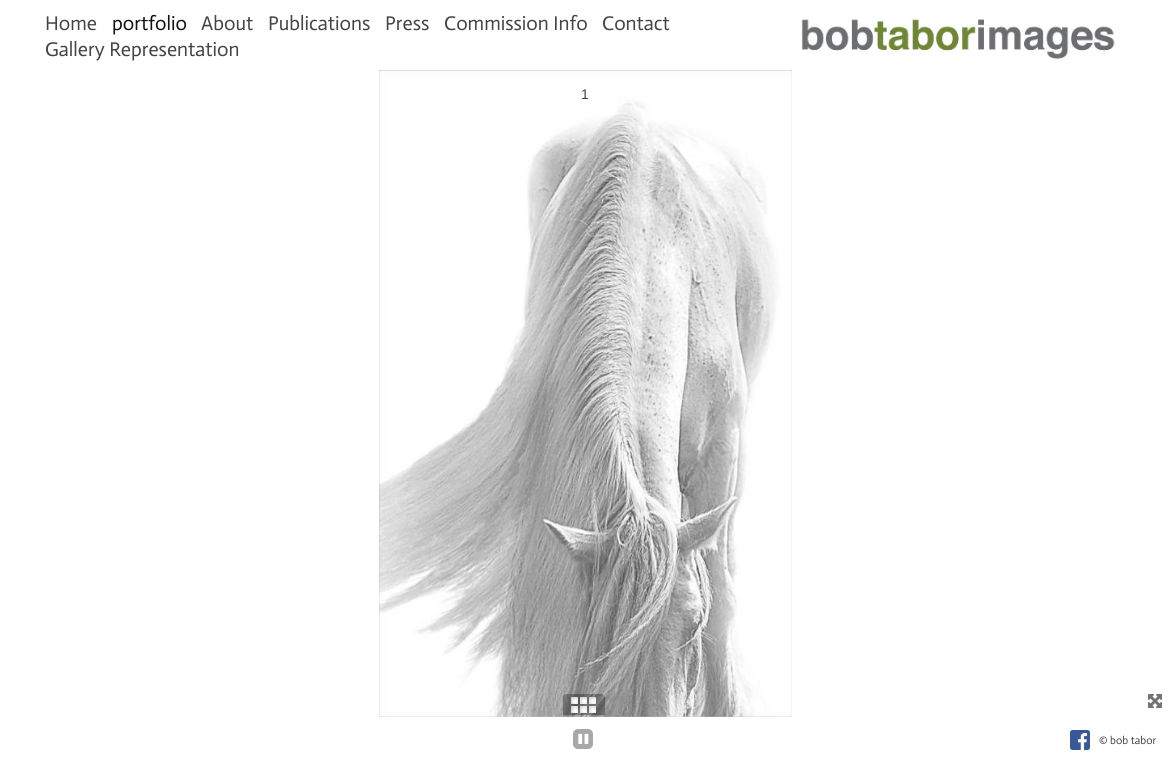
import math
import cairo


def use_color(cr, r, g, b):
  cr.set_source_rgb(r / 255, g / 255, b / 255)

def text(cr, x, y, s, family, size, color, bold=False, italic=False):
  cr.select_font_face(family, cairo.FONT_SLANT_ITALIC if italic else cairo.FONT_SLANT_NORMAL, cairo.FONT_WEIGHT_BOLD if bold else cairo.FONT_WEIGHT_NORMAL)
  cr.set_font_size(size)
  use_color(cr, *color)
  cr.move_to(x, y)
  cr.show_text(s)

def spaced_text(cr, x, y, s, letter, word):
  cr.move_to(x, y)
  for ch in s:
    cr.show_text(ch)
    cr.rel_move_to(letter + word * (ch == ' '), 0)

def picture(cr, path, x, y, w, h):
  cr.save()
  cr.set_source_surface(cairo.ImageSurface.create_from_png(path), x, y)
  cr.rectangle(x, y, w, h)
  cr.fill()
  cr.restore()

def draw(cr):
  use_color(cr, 255, 255, 255)
  cr.paint()
  picture(cr, "img_01.png", 801, 17, 314, 42)
  picture(cr, "img_02.png", 1148, 694, 14, 14)
  picture(cr, "img_03.png", 379, 70, 413, 647)
  picture(cr, "img_04.png", 563, 694, 42, 21)
  picture(cr, "img_05.png", 573, 729, 20, 20)
  picture(cr, "img_06.png", 1070, 730, 20, 20)
  text(cr, 45, 30, "Home", "Actor", 20, (68, 68, 68))
  text(cr, 112, 30, "portfolio", "Actor", 20, (17, 17, 17))
  text(cr, 201, 30, "About", "Actor", 20, (68, 68, 68))
  text(cr, 268, 30, "Publications", "Actor", 20, (68, 68, 68))
  text(cr, 385, 30, "Press", "Actor", 20, (68, 68, 68))
  text(cr, 444, 30, "Commission Info", "Actor", 20, (68, 68, 68))
  text(cr, 602, 30, "Contact", "Actor", 20, (68, 68, 68))
  text(cr, 45, 56, "Gallery Representation", "Actor", 20, (68, 68, 68))
  cr.select_font_face("Liberation Sans")
  cr.set_font_size(14)
  spaced_text(cr, 581, 99, "1", 1, 0)
  text(cr, 1099, 744, "© bob tabor", "Actor", 11, (68, 68, 68))


surface = cairo.ImageSurface(cairo.FORMAT_RGB24, 1171, 765)
cr = cairo.Context(surface)
options = cairo.FontOptions()
options.set_hint_metrics(cairo.HINT_METRICS_OFF)
options.set_hint_style(cairo.HINT_STYLE_NONE)
cr.set_font_options(options)
cr.set_miter_limit(4)
draw(cr)
surface.write_to_png("out.png")
